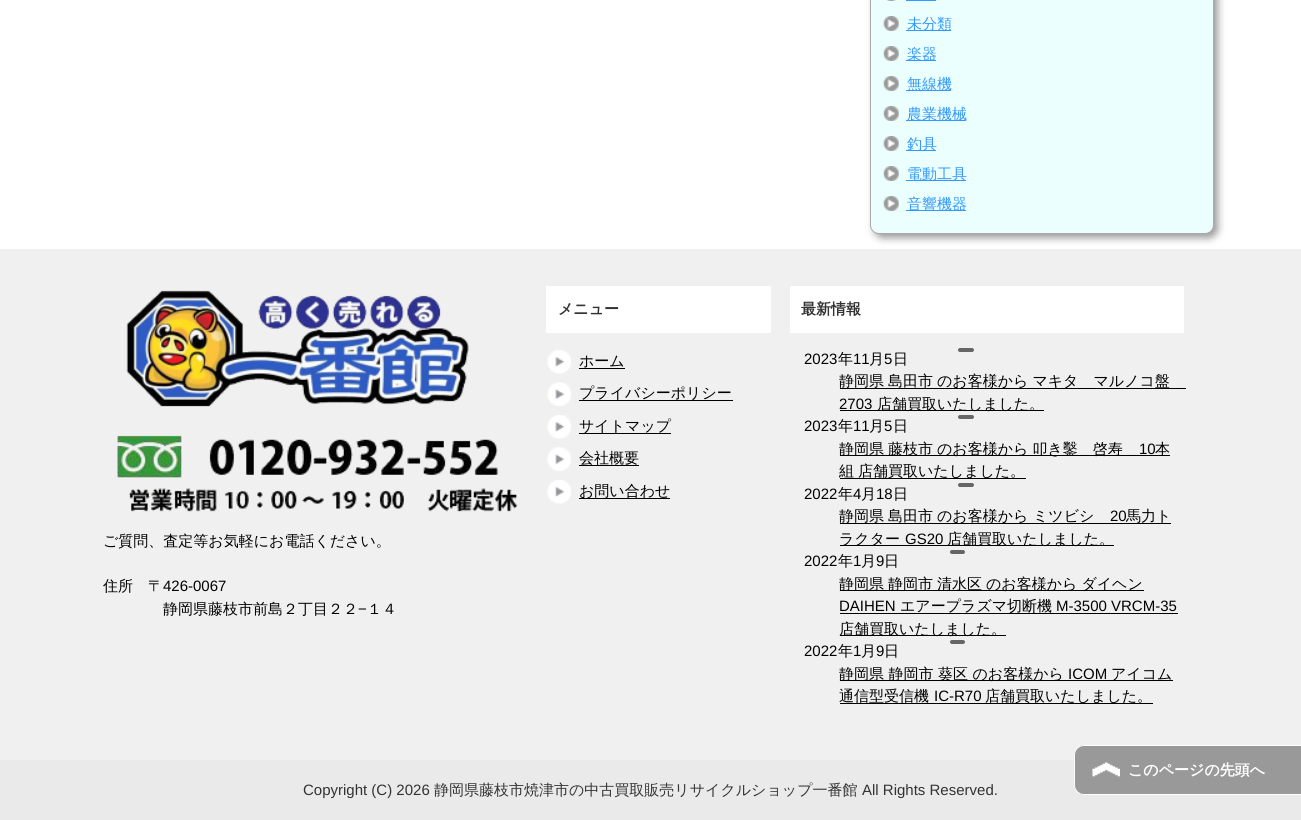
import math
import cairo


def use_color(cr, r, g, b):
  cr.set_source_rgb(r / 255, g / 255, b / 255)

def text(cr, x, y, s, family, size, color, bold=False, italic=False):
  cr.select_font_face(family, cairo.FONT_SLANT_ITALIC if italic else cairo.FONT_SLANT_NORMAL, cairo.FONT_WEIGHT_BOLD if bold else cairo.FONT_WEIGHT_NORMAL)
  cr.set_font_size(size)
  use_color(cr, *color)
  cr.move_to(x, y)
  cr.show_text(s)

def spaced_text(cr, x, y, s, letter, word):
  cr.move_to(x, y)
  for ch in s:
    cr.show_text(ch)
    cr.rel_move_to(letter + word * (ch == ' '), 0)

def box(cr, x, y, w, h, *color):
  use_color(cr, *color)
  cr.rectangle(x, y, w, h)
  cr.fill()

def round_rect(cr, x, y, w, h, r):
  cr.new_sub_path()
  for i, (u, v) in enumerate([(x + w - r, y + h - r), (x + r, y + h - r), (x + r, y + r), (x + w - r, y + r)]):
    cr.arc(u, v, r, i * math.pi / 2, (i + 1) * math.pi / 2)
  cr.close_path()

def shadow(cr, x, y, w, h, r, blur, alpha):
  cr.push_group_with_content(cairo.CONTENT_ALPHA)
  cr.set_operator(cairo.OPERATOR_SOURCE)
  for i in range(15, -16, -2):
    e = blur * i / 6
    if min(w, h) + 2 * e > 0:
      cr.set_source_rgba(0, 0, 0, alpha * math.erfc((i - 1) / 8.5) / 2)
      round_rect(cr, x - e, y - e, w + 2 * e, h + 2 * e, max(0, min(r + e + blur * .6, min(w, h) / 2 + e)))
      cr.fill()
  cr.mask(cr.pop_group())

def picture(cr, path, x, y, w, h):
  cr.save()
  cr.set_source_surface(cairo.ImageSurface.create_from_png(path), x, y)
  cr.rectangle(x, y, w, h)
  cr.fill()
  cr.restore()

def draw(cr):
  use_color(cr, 255, 255, 255)
  cr.paint()
  box(cr, 0, 249, 1301, 511, 240, 240, 240)
  use_color(cr, 0, 0, 0)
  shadow(cr, 874, -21, 344, 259, 9, 4, 0.4)
  use_color(cr, 235, 255, 254)
  round_rect(cr, 870.5, -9.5, 343, 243, 8.5)
  cr.fill_preserve()
  use_color(cr, 169, 169, 169)
  cr.set_line_width(1)
  cr.stroke()
  picture(cr, "img_01.png", 886, 0, 10, 1)
  box(cr, 906, 0, 30, 1, 51, 153, 255)
  picture(cr, "img_02.png", 883, 16, 16, 15)
  box(cr, 906, 30, 45, 1, 51, 153, 255)
  picture(cr, "img_02.png", 883, 46, 16, 15)
  box(cr, 906, 60, 30, 1, 51, 153, 255)
  picture(cr, "img_02.png", 883, 76, 16, 15)
  box(cr, 906, 90, 45, 1, 51, 153, 255)
  picture(cr, "img_02.png", 883, 106, 16, 15)
  box(cr, 906, 120, 60, 1, 51, 153, 255)
  picture(cr, "img_02.png", 883, 136, 16, 15)
  box(cr, 906, 150, 30, 1, 51, 153, 255)
  picture(cr, "img_02.png", 883, 166, 16, 15)
  box(cr, 906, 180, 60, 1, 51, 153, 255)
  picture(cr, "img_02.png", 883, 196, 16, 15)
  box(cr, 906, 210, 60, 1, 51, 153, 255)
  box(cr, 546, 286, 225, 47, 255, 255, 255)
  picture(cr, "img_03.png", 547, 350, 24, 24)
  box(cr, 579, 368, 46, 1, 0, 0, 0)
  picture(cr, "img_04.png", 547, 382, 24, 24)
  box(cr, 579, 400, 154, 1, 0, 0, 0)
  picture(cr, "img_03.png", 547, 415, 24, 24)
  box(cr, 579, 433, 92, 1, 0, 0, 0)
  picture(cr, "img_05.png", 547, 447, 24, 24)
  box(cr, 579, 465, 60, 1, 0, 0, 0)
  picture(cr, "img_03.png", 547, 480, 24, 24)
  box(cr, 579, 498, 91, 1, 0, 0, 0)
  box(cr, 790, 286, 394, 47, 255, 255, 255)
  use_color(cr, 102, 102, 102)
  round_rect(cr, 958, 348, 16, 4, 2)
  cr.fill()
  box(cr, 840, 388, 346, 1, 0, 0, 0)
  box(cr, 840, 410, 204, 1, 0, 0, 0)
  use_color(cr, 102, 102, 102)
  round_rect(cr, 958, 415, 16, 4, 2)
  cr.fill()
  box(cr, 840, 455, 330, 1, 0, 0, 0)
  box(cr, 840, 478, 186, 1, 0, 0, 0)
  use_color(cr, 102, 102, 102)
  round_rect(cr, 958, 483, 16, 4, 2)
  cr.fill()
  box(cr, 840, 523, 331, 1, 0, 0, 0)
  box(cr, 840, 545, 274, 1, 0, 0, 0)
  use_color(cr, 102, 102, 102)
  round_rect(cr, 950, 550, 15, 4, 2)
  cr.fill()
  box(cr, 840, 590, 304, 1, 0, 0, 0)
  box(cr, 840, 613, 338, 1, 0, 0, 0)
  box(cr, 840, 635, 166, 1, 0, 0, 0)
  use_color(cr, 102, 102, 102)
  round_rect(cr, 950, 640, 15, 4, 2)
  cr.fill()
  box(cr, 840, 680, 333, 1, 0, 0, 0)
  box(cr, 840, 703, 313, 1, 0, 0, 0)
  picture(cr, "img_06.png", 126, 290, 343, 117)
  picture(cr, "img_07.png", 116, 435, 402, 77)
  box(cr, 0, 760, 1301, 60, 234, 234, 234)
  use_color(cr, 153, 153, 153)
  cr.new_path()
  cr.move_to(1084, 745)
  cr.line_to(1301, 745)
  cr.line_to(1301, 795)
  cr.line_to(1084, 795)
  cr.curve_to(1078.5, 795, 1074, 790.5, 1074, 785)
  cr.line_to(1074, 755)
  cr.curve_to(1074, 749.5, 1078.5, 745, 1084, 745)
  cr.close_path()
  cr.fill()
  picture(cr, "img_08.png", 1092, 762, 28, 15)
  use_color(cr, 255, 255, 255)
  cr.set_fill_rule(cairo.FILL_RULE_EVEN_ODD)
  cr.new_path()
  cr.move_to(1084, 745)
  cr.line_to(1301, 745)
  cr.line_to(1301, 795)
  cr.line_to(1084, 795)
  cr.curve_to(1078, 795, 1074, 791, 1074, 785)
  cr.line_to(1074, 755)
  cr.curve_to(1074, 749, 1078, 745, 1084, 745)
  cr.close_path()
  cr.move_to(1084, 746)
  cr.line_to(1301, 746)
  cr.line_to(1301, 794)
  cr.line_to(1084, 794)
  cr.curve_to(1079, 794, 1075, 790, 1075, 785)
  cr.line_to(1075, 755)
  cr.curve_to(1075, 750, 1079, 746, 1084, 746)
  cr.close_path()
  cr.fill()
  text(cr, 907, 29, "未分類", "WenQuanYi Zen Hei Medium", 15, (51, 153, 255))
  text(cr, 907, 59, "楽器", "WenQuanYi Zen Hei Medium", 15, (51, 153, 255))
  text(cr, 907, 89, "無線機", "WenQuanYi Zen Hei Medium", 15, (51, 153, 255))
  text(cr, 907, 119, "農業機械", "WenQuanYi Zen Hei Medium", 15, (51, 153, 255))
  text(cr, 907, 149, "釣具", "WenQuanYi Zen Hei Medium", 15, (51, 153, 255))
  text(cr, 907, 179, "電動工具", "WenQuanYi Zen Hei Medium", 15, (51, 153, 255))
  text(cr, 907, 209, "音響機器", "WenQuanYi Zen Hei Medium", 15, (51, 153, 255))
  text(cr, 558, 314, "メニュー", "WenQuanYi Zen Hei", 15, (51, 51, 51), bold=True)
  text(cr, 579, 366, "ホーム", "WenQuanYi Zen Hei Medium", 15, (0, 0, 0))
  text(cr, 579, 398, "プライバシーポリシー", "WenQuanYi Zen Hei Medium", 15, (0, 0, 0))
  text(cr, 579, 431, "サイトマップ", "WenQuanYi Zen Hei Medium", 15, (0, 0, 0))
  text(cr, 579, 463, "会社概要", "WenQuanYi Zen Hei Medium", 15, (0, 0, 0))
  text(cr, 579, 496, "お問い合わせ", "WenQuanYi Zen Hei Medium", 15, (0, 0, 0))
  text(cr, 801, 314, "最新情報", "WenQuanYi Zen Hei", 15, (51, 51, 51), bold=True)
  text(cr, 804, 364, "2023", "Liberation Sans", 15, (0, 0, 0))
  text(cr, 838, 364, "年", "WenQuanYi Zen Hei Medium", 15, (0, 0, 0))
  text(cr, 853, 364, "11", "Liberation Sans", 15, (0, 0, 0))
  text(cr, 869, 364, "月", "WenQuanYi Zen Hei Medium", 15, (0, 0, 0))
  text(cr, 884, 364, "5", "Liberation Sans", 15, (0, 0, 0))
  text(cr, 893, 364, "日", "WenQuanYi Zen Hei Medium", 15, (0, 0, 0))
  spaced_text(cr, 839, 386, "静岡県 島田市 のお客様から マキタ　マルノコ盤", 0, -0.5)
  text(cr, 839, 409, "2703", "Liberation Sans", 15, (0, 0, 0))
  text(cr, 877, 409, "店舗買取いたしました。", "WenQuanYi Zen Hei Medium", 15, (0, 0, 0))
  text(cr, 804, 431, "2023", "Liberation Sans", 15, (0, 0, 0))
  text(cr, 838, 431, "年", "WenQuanYi Zen Hei Medium", 15, (0, 0, 0))
  text(cr, 853, 431, "11", "Liberation Sans", 15, (0, 0, 0))
  text(cr, 869, 431, "月", "WenQuanYi Zen Hei Medium", 15, (0, 0, 0))
  text(cr, 884, 431, "5", "Liberation Sans", 15, (0, 0, 0))
  text(cr, 893, 431, "日", "WenQuanYi Zen Hei Medium", 15, (0, 0, 0))
  spaced_text(cr, 839, 454, "静岡県 藤枝市 のお客様から 叩き鑿　啓寿", 0, -0.5)
  text(cr, 1139, 454, "10", "Liberation Sans", 15, (0, 0, 0))
  text(cr, 1155, 454, "本", "WenQuanYi Zen Hei Medium", 15, (0, 0, 0))
  spaced_text(cr, 839, 476, "組 店舗買取いたしました。", 0, -0.5)
  text(cr, 804, 499, "2022", "Liberation Sans", 15, (0, 0, 0))
  text(cr, 838, 499, "年", "WenQuanYi Zen Hei Medium", 15, (0, 0, 0))
  text(cr, 853, 499, "4", "Liberation Sans", 15, (0, 0, 0))
  text(cr, 861, 499, "月", "WenQuanYi Zen Hei Medium", 15, (0, 0, 0))
  text(cr, 876, 499, "18", "Liberation Sans", 15, (0, 0, 0))
  text(cr, 893, 499, "日", "WenQuanYi Zen Hei Medium", 15, (0, 0, 0))
  spaced_text(cr, 839, 521, "静岡県 島田市 のお客様から", 0, -0.5)
  text(cr, 1033, 521, "ミツビシ", "WenQuanYi Zen Hei Medium", 15, (0, 0, 0))
  text(cr, 1110, 521, "20", "Liberation Sans", 15, (0, 0, 0))
  text(cr, 1126, 521, "馬力ト", "WenQuanYi Zen Hei Medium", 15, (0, 0, 0))
  text(cr, 839, 544, "ラクター", "WenQuanYi Zen Hei Medium", 15, (0, 0, 0))
  text(cr, 905, 544, "GS20", "Liberation Sans", 15, (0, 0, 0))
  text(cr, 947, 544, "店舗買取いたしました。", "WenQuanYi Zen Hei Medium", 15, (0, 0, 0))
  text(cr, 804, 566, "2022", "Liberation Sans", 15, (0, 0, 0))
  text(cr, 838, 566, "年", "WenQuanYi Zen Hei Medium", 15, (0, 0, 0))
  text(cr, 853, 566, "1", "Liberation Sans", 15, (0, 0, 0))
  text(cr, 861, 566, "月", "WenQuanYi Zen Hei Medium", 15, (0, 0, 0))
  text(cr, 876, 566, "9", "Liberation Sans", 15, (0, 0, 0))
  text(cr, 884, 566, "日", "WenQuanYi Zen Hei Medium", 15, (0, 0, 0))
  spaced_text(cr, 839, 589, "静岡県 静岡市 清水区 のお客様から ダイヘン", 0, -0.5)
  text(cr, 839, 611, "DAIHEN", "Liberation Sans", 15, (0, 0, 0))
  text(cr, 900, 611, "エアープラズマ切断機", "WenQuanYi Zen Hei Medium", 15, (0, 0, 0))
  text(cr, 1056, 611, "M-3500 VRCM-35", "Liberation Sans", 15, (0, 0, 0))
  text(cr, 839, 634, "店舗買取いたしました。", "WenQuanYi Zen Hei Medium", 15, (0, 0, 0))
  text(cr, 804, 656, "2022", "Liberation Sans", 15, (0, 0, 0))
  text(cr, 838, 656, "年", "WenQuanYi Zen Hei Medium", 15, (0, 0, 0))
  text(cr, 853, 656, "1", "Liberation Sans", 15, (0, 0, 0))
  text(cr, 861, 656, "月", "WenQuanYi Zen Hei Medium", 15, (0, 0, 0))
  text(cr, 876, 656, "9", "Liberation Sans", 15, (0, 0, 0))
  text(cr, 884, 656, "日", "WenQuanYi Zen Hei Medium", 15, (0, 0, 0))
  text(cr, 839, 679, "静岡県 静岡市 葵区 のお客様から", "WenQuanYi Zen Hei Medium", 15, (0, 0, 0))
  text(cr, 1068, 679, "ICOM", "Liberation Sans", 15, (0, 0, 0))
  text(cr, 1111, 679, "アイコム", "WenQuanYi Zen Hei Medium", 15, (0, 0, 0))
  text(cr, 839, 701, "通信型受信機", "WenQuanYi Zen Hei Medium", 15, (0, 0, 0))
  text(cr, 934, 701, "IC-R70", "Liberation Sans", 15, (0, 0, 0))
  text(cr, 985, 701, "店舗買取いたしました。", "WenQuanYi Zen Hei Medium", 15, (0, 0, 0))
  text(cr, 103, 546, "ご質問、査定等お気軽にお電話ください。", "WenQuanYi Zen Hei Medium", 15, (0, 0, 0))
  text(cr, 103, 591, "住所　〒", "WenQuanYi Zen Hei Medium", 15, (0, 0, 0))
  text(cr, 163, 591, "426-0067", "Liberation Sans", 15, (0, 0, 0))
  text(cr, 163, 614, "静岡県藤枝市前島２丁目２２", "WenQuanYi Zen Hei Medium", 15, (0, 0, 0))
  text(cr, 358, 614, "−", "Liberation Sans", 15, (0, 0, 0))
  text(cr, 367, 614, "１４", "WenQuanYi Zen Hei Medium", 15, (0, 0, 0))
  text(cr, 1128, 775, "このページの先頭へ", "WenQuanYi Zen Hei", 15, (255, 255, 255), bold=True)
  text(cr, 303, 795, "Copyright (C) 2026", "Liberation Sans", 15, (51, 51, 51))
  text(cr, 434, 795, "静岡県藤枝市焼津市の中古買取販売リサイクルショップ一番館", "WenQuanYi Zen Hei Medium", 15, (51, 51, 51))
  text(cr, 862, 795, "All Rights Reserved.", "Liberation Sans", 15, (51, 51, 51))


surface = cairo.ImageSurface(cairo.FORMAT_RGB24, 1301, 820)
cr = cairo.Context(surface)
options = cairo.FontOptions()
options.set_hint_metrics(cairo.HINT_METRICS_OFF)
options.set_hint_style(cairo.HINT_STYLE_NONE)
cr.set_font_options(options)
cr.set_miter_limit(4)
draw(cr)
surface.write_to_png("out.png")
